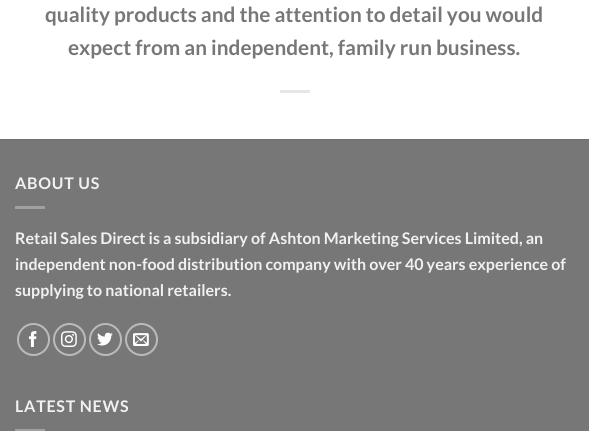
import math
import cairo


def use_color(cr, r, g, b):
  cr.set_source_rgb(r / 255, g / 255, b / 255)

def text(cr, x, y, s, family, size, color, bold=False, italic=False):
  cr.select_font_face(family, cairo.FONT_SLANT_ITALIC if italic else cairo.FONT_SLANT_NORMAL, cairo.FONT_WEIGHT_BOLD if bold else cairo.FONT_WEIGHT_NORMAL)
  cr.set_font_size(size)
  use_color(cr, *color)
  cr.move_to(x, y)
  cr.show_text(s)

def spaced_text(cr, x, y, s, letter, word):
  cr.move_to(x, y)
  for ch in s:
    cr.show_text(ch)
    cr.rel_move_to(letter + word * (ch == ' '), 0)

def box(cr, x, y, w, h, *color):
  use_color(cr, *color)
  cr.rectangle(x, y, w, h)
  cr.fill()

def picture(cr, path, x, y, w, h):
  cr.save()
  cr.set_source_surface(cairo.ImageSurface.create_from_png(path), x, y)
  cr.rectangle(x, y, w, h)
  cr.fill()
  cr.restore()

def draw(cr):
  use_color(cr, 255, 255, 255)
  cr.paint()
  box(cr, 280, 90, 30, 3, 230, 230, 230)
  box(cr, 0, 140, 589, 291, 119, 119, 119)
  box(cr, 0, 139, 589, 1, 113, 113, 113)
  box(cr, 15, 206, 30, 3, 160, 160, 160)
  cr.arc(33.5, 339.5, 15.5, 0, 2 * math.pi)
  use_color(cr, 187, 187, 187)
  cr.stroke()
  picture(cr, "img_01.png", 28, 331, 9, 16)
  cr.arc(69.5, 339.5, 15.5, 0, 2 * math.pi)
  cr.stroke()
  picture(cr, "img_02.png", 61, 331, 16, 16)
  cr.arc(105.5, 339.5, 15.5, 0, 2 * math.pi)
  cr.stroke()
  picture(cr, "img_03.png", 97, 332, 16, 14)
  cr.arc(141.5, 339.5, 15.5, 0, 2 * math.pi)
  cr.stroke()
  picture(cr, "img_04.png", 133, 333, 16, 13)
  box(cr, 15, 429, 30, 2, 160, 160, 160)
  text(cr, 45, 22, "quality products and the attention to detail you would", "Lato", 20.8, (119, 119, 119), bold=True)
  text(cr, 68, 55, "expect from an independent, family run business.", "Lato", 20.8, (119, 119, 119), bold=True)
  cr.set_font_size(16)
  use_color(cr, 241, 241, 241)
  spaced_text(cr, 15, 189, "ABOUT US", 0.75, 0)
  text(cr, 15, 244, "Retail Sales Direct is a subsidiary of Ashton Marketing Services Limited, an", "Lato", 16, (241, 241, 241), bold=True)
  text(cr, 15, 270, "independent non-food distribution company with over 40 years experience of", "Lato", 16, (241, 241, 241), bold=True)
  text(cr, 15, 296, "supplying to national retailers.", "Lato", 16, (241, 241, 241), bold=True)
  spaced_text(cr, 15, 412, "LATEST NEWS", 0.75, 0)


surface = cairo.ImageSurface(cairo.FORMAT_RGB24, 589, 431)
cr = cairo.Context(surface)
options = cairo.FontOptions()
options.set_hint_metrics(cairo.HINT_METRICS_OFF)
options.set_hint_style(cairo.HINT_STYLE_NONE)
cr.set_font_options(options)
cr.set_miter_limit(4)
draw(cr)
surface.write_to_png("out.png")
